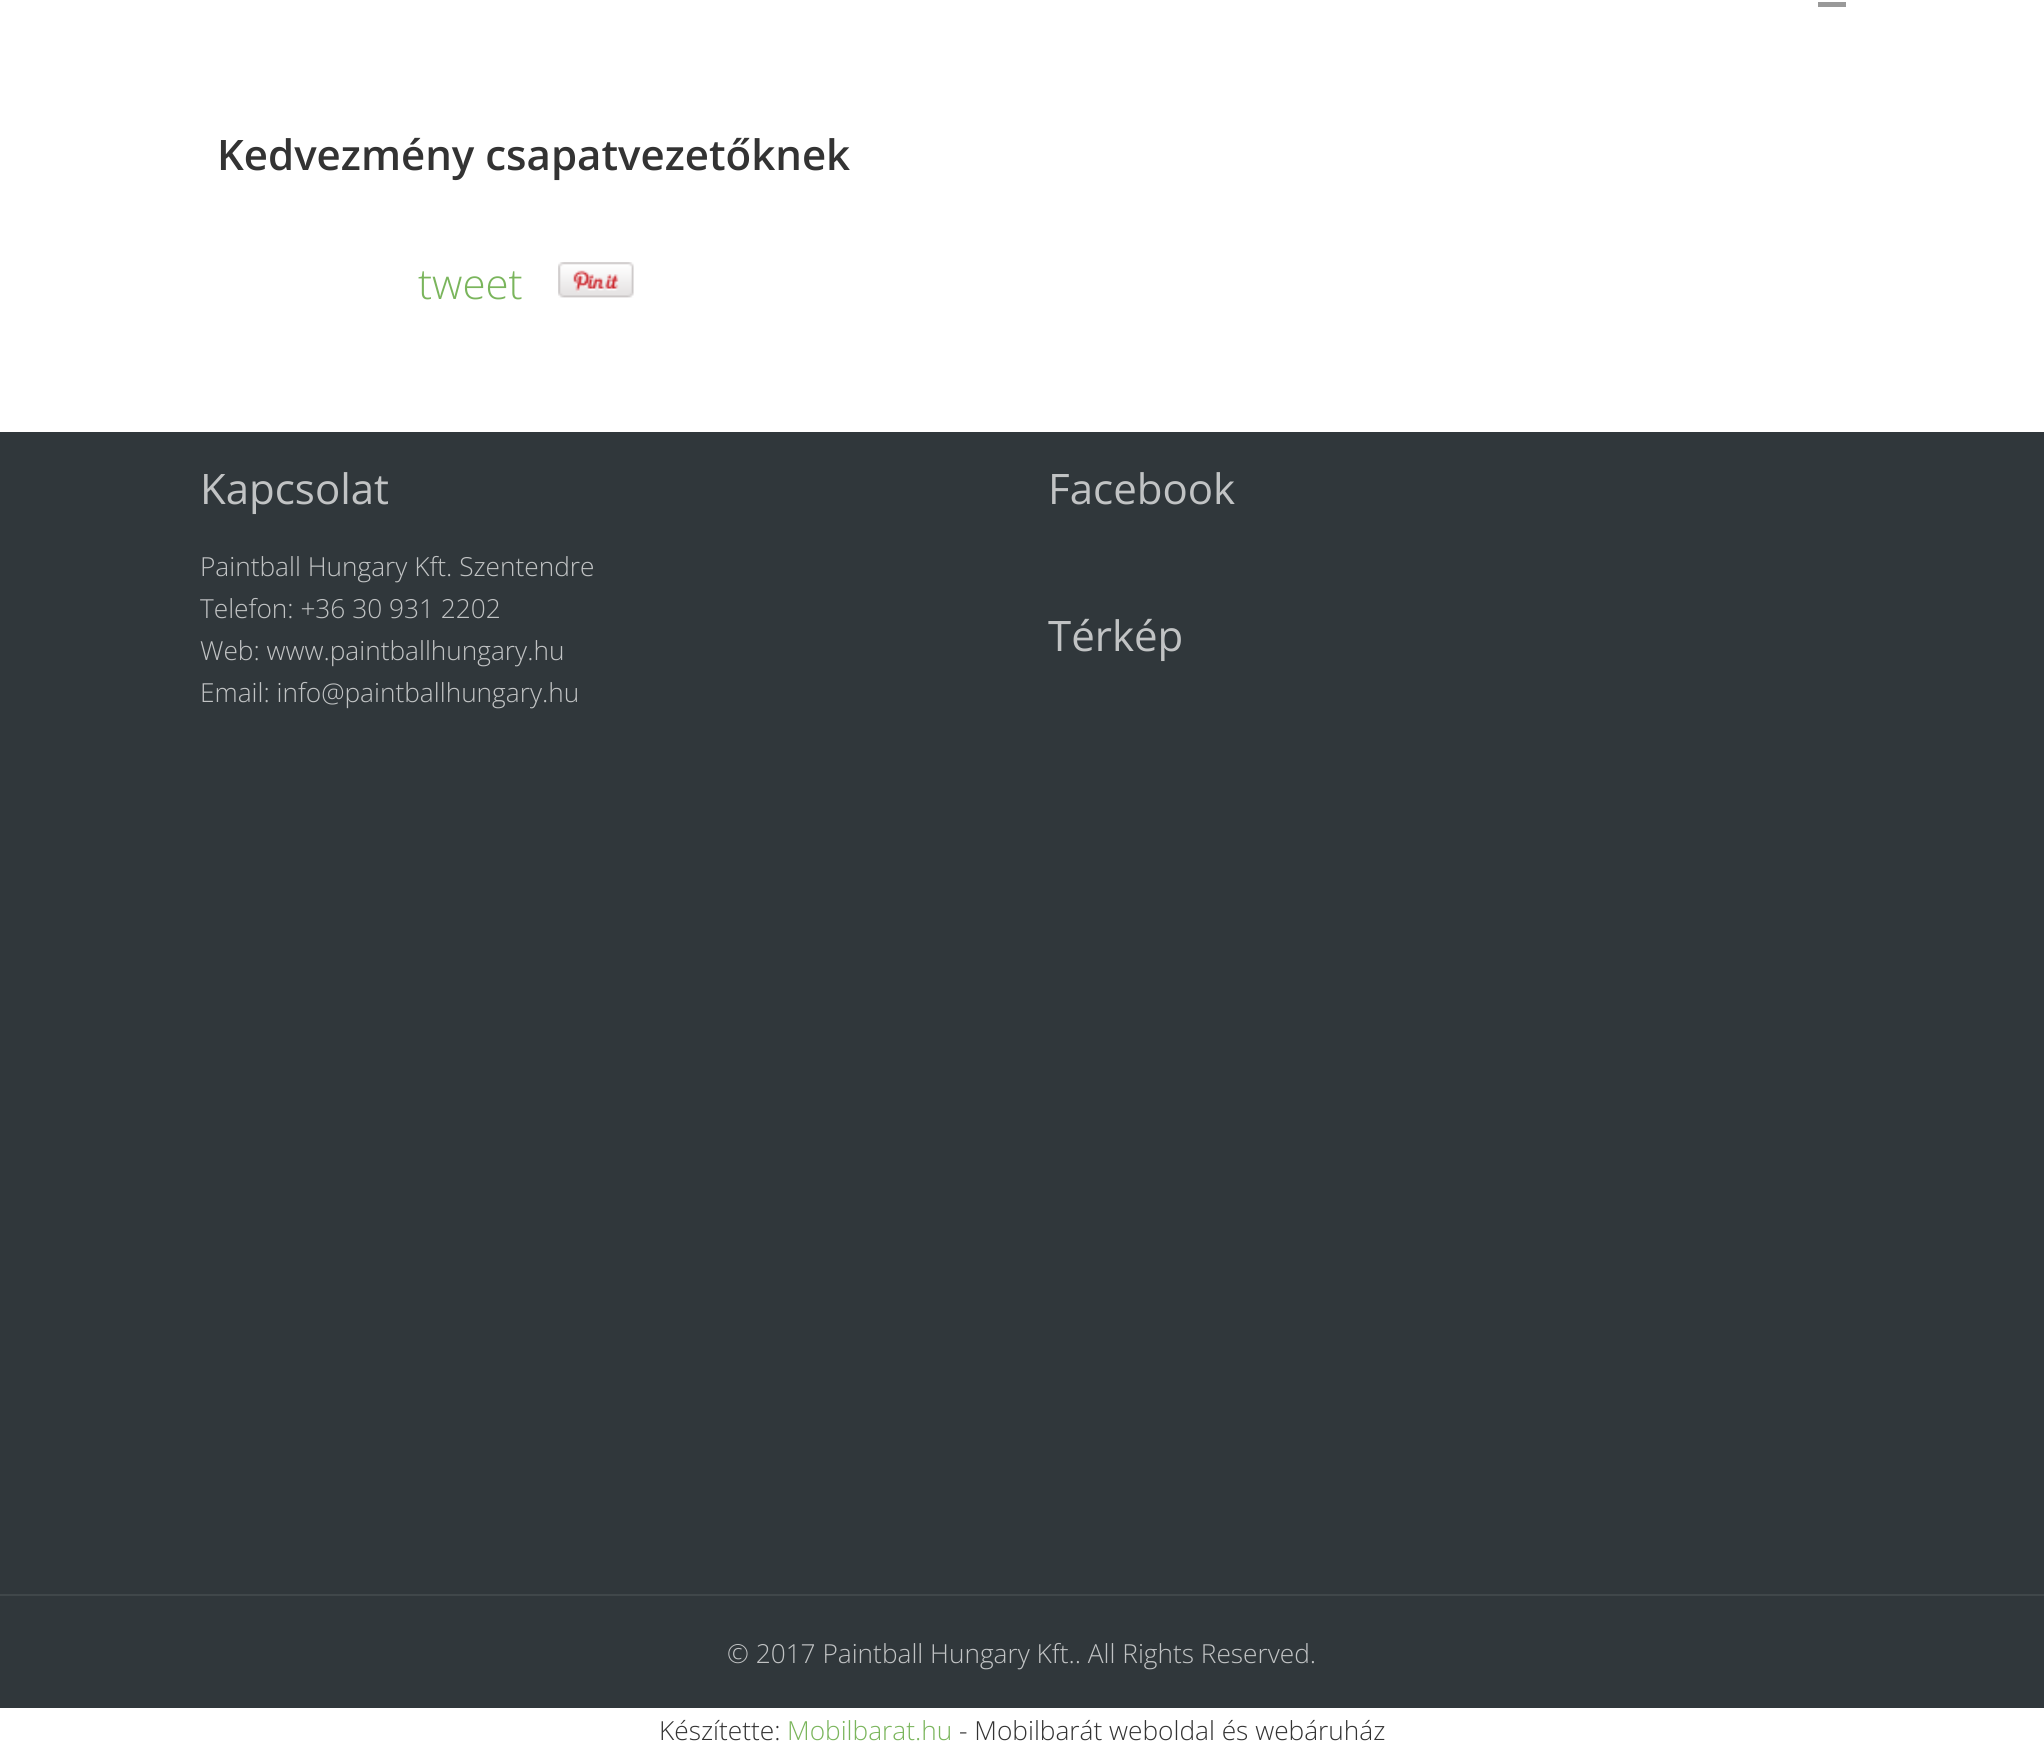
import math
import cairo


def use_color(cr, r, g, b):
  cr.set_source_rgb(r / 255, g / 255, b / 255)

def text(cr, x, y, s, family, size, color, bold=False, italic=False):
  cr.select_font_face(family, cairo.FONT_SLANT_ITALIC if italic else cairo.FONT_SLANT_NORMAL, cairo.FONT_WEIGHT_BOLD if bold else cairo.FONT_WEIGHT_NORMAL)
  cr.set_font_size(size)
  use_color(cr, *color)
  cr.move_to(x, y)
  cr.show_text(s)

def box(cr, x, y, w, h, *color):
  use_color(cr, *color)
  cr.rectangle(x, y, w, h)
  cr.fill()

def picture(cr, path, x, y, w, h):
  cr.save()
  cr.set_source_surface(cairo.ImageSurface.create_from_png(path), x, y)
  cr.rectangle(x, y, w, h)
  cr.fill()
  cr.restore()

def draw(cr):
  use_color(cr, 255, 255, 255)
  cr.paint()
  box(cr, 1818, 2, 28, 5, 153, 153, 153)
  picture(cr, "img_01.png", 558, 262, 76, 36)
  box(cr, 0, 432, 2044, 1162, 48, 55, 59)
  box(cr, 0, 1594, 2044, 2, 64, 71, 74)
  box(cr, 0, 1596, 2044, 112, 48, 55, 59)
  text(cr, 217, 170, "Kedvezmény csapatvezetőknek", "Open Sans SemiBold", 42, (51, 51, 51))
  text(cr, 418, 299, "tweet", "Open Sans Light", 42, (122, 181, 92))
  text(cr, 200, 504, "Kapcsolat", "Open Sans", 42, (193, 195, 196))
  text(cr, 200, 576, "Paintball Hungary Kft. Szentendre", "Open Sans Light", 26.25, (193, 195, 196))
  text(cr, 200, 618, "Telefon: +36 30 931 2202", "Open Sans Light", 26.25, (193, 195, 196))
  text(cr, 200, 660, "Web: www.paintballhungary.hu", "Open Sans Light", 26.25, (193, 195, 196))
  text(cr, 200, 702, "Email: info@paintballhungary.hu", "Open Sans Light", 26.25, (193, 195, 196))
  text(cr, 1048, 504, "Facebook", "Open Sans", 42, (193, 195, 196))
  text(cr, 1048, 651, "Térkép", "Open Sans", 42, (193, 195, 196))
  text(cr, 727, 1663, "© 2017 Paintball Hungary Kft.. All Rights Reserved.", "Open Sans Light", 26.25, (193, 195, 196))
  text(cr, 659, 1740, "Készítette:", "Open Sans Light", 26.25, (51, 51, 51))
  text(cr, 787, 1740, "Mobilbarat.hu", "Open Sans Light", 26.25, (122, 181, 92))
  text(cr, 959, 1740, "- Mobilbarát weboldal és webáruház", "Open Sans Light", 26.25, (51, 51, 51))


surface = cairo.ImageSurface(cairo.FORMAT_RGB24, 2044, 1749)
cr = cairo.Context(surface)
options = cairo.FontOptions()
options.set_hint_metrics(cairo.HINT_METRICS_OFF)
options.set_hint_style(cairo.HINT_STYLE_NONE)
cr.set_font_options(options)
cr.set_miter_limit(4)
draw(cr)
surface.write_to_png("out.png")
